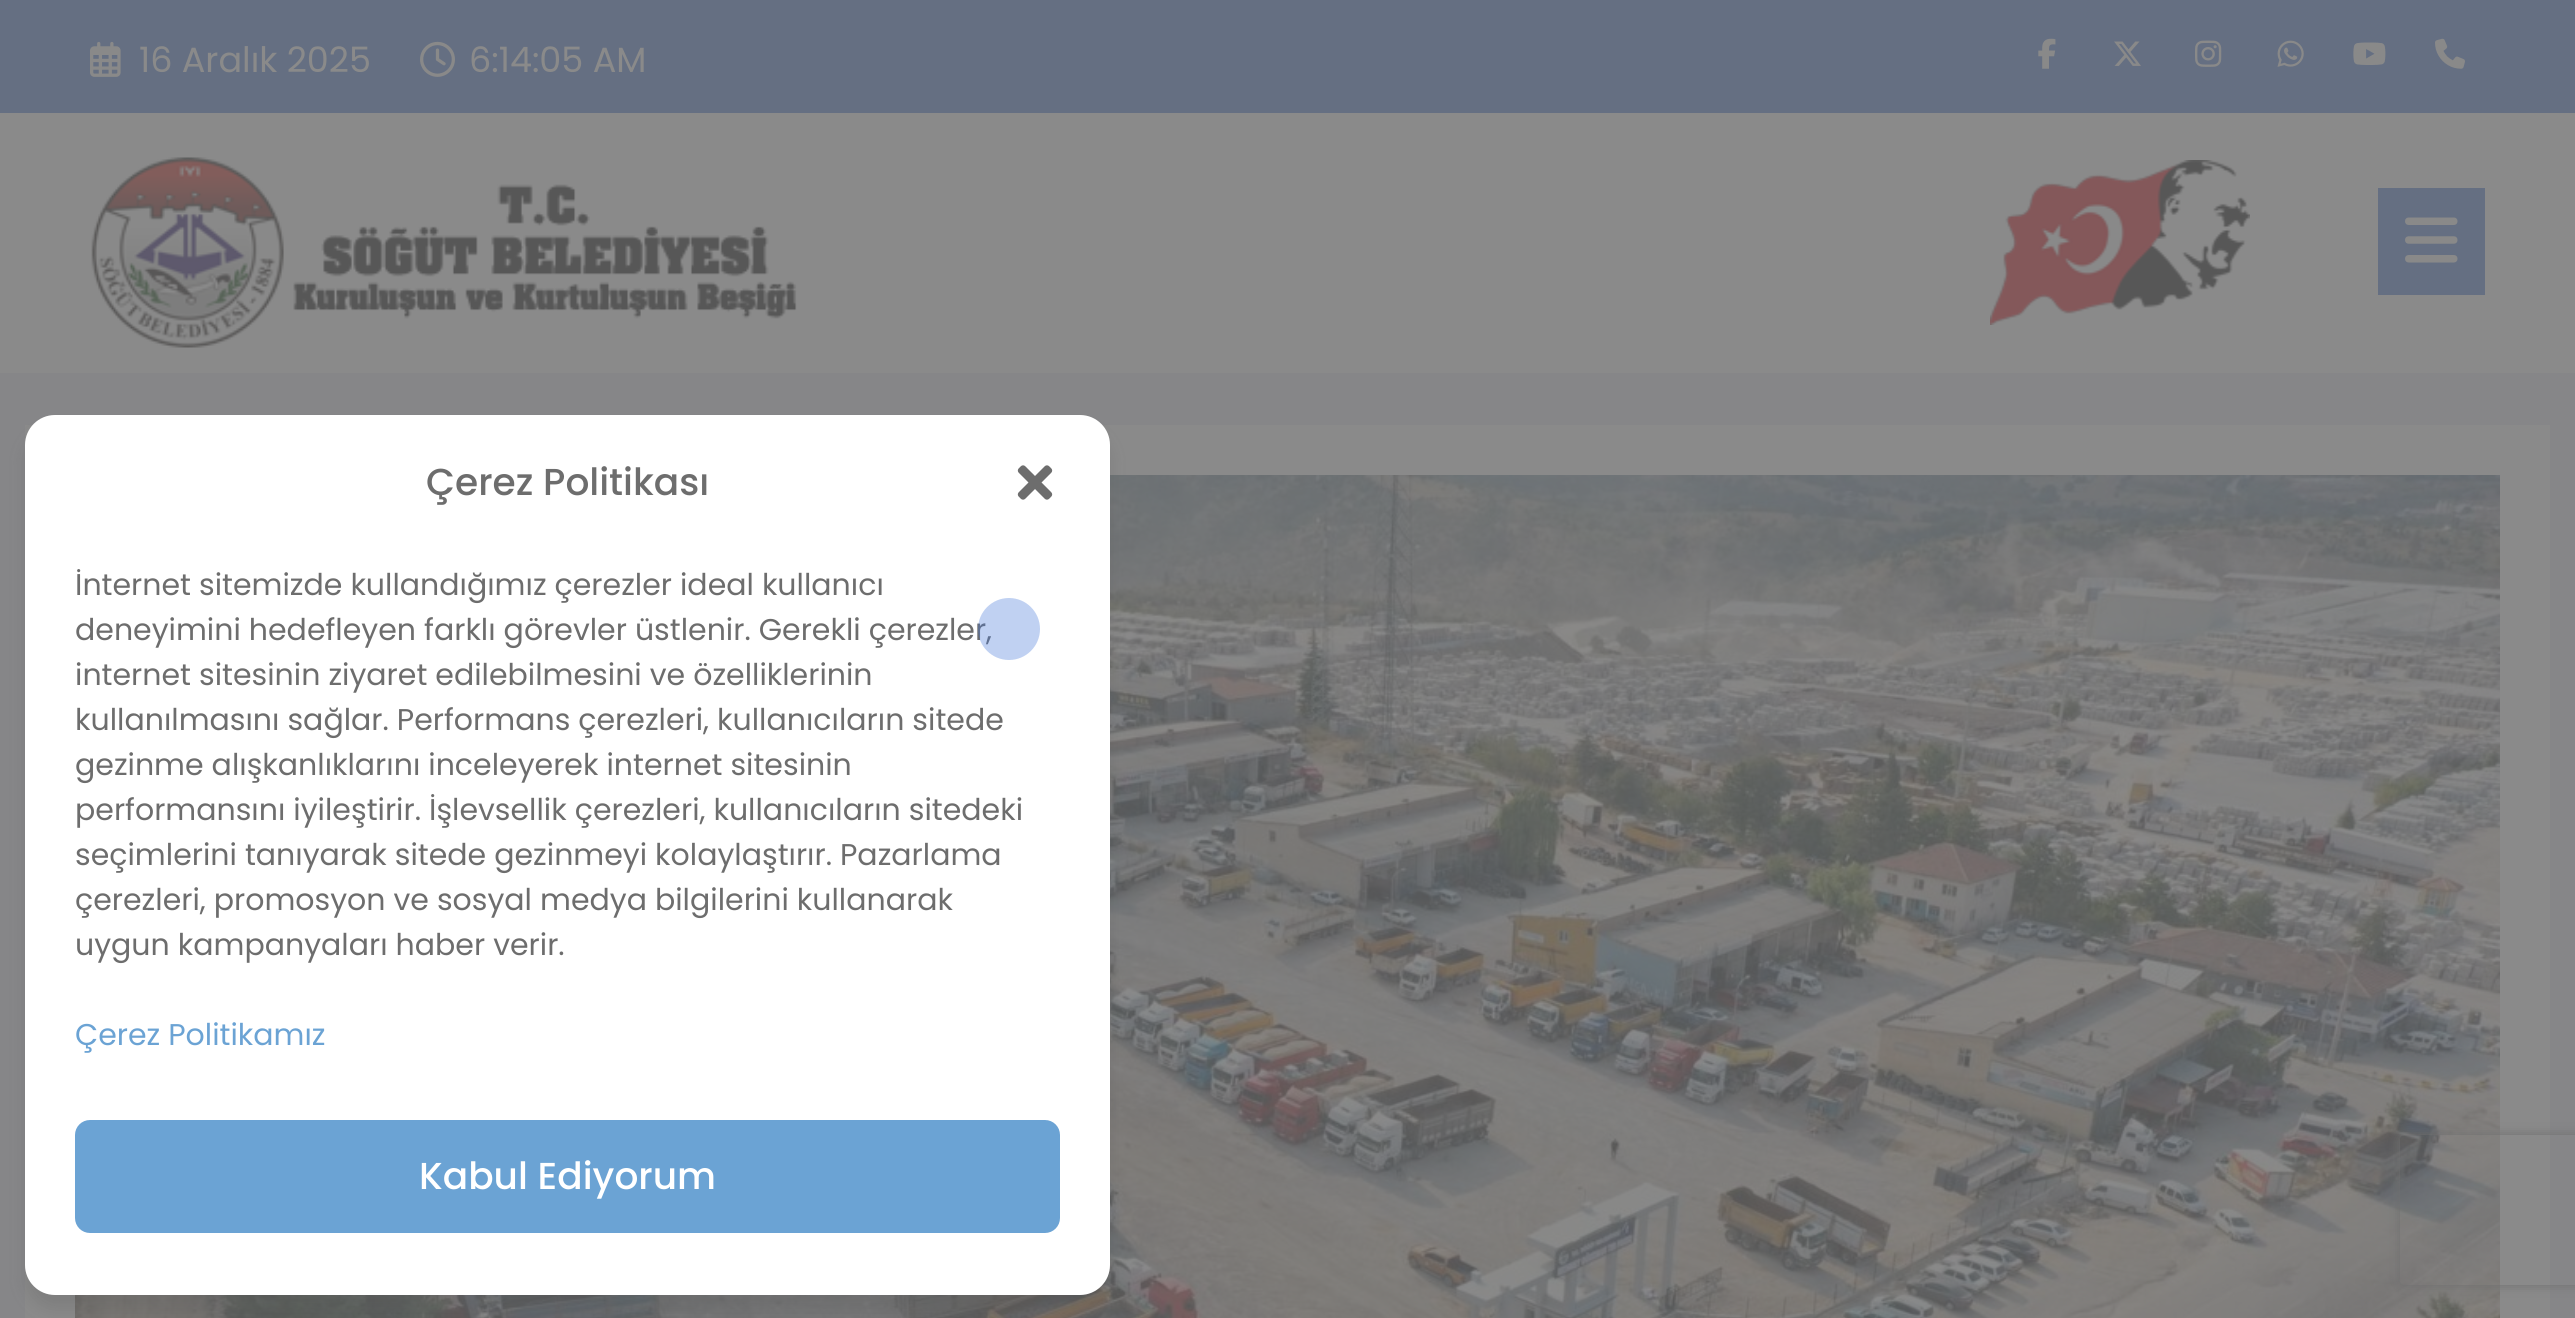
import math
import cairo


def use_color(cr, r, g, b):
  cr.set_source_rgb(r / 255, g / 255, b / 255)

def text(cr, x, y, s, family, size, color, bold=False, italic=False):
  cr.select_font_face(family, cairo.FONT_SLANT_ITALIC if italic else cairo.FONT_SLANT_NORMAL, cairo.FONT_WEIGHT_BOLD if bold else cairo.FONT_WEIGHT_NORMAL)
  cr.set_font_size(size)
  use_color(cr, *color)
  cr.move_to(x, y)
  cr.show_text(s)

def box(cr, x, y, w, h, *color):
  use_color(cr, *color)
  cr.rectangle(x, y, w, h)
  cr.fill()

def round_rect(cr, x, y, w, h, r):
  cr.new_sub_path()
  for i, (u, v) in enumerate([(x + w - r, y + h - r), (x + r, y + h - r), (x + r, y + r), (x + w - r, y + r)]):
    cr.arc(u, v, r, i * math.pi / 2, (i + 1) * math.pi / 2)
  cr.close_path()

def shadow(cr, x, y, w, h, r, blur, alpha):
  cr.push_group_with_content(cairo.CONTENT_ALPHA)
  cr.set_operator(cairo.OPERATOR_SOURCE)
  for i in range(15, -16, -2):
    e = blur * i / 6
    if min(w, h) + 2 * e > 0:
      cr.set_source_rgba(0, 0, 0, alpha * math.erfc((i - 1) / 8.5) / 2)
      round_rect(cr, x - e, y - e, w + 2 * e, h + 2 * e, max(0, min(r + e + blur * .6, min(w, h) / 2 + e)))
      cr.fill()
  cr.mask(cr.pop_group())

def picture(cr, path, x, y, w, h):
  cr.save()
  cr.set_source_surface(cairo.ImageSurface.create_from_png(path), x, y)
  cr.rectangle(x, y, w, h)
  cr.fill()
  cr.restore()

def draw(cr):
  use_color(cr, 134, 134, 136)
  cr.paint()
  box(cr, 0, 0, 2575, 113, 101, 111, 130)
  picture(cr, "img_01.png", 90, 41, 31, 36)
  picture(cr, "img_02.png", 420, 41, 35, 36)
  picture(cr, "img_03.png", 2038, 38, 18, 31)
  picture(cr, "img_04.png", 2114, 41, 27, 25)
  picture(cr, "img_05.png", 2195, 40, 27, 27)
  picture(cr, "img_06.png", 2277, 40, 27, 27)
  picture(cr, "img_07.png", 2353, 42, 33, 23)
  picture(cr, "img_08.png", 2435, 38, 30, 31)
  box(cr, 0, 113, 2575, 260, 138, 138, 138)
  picture(cr, "img_09.png", 91, 157, 706, 191)
  picture(cr, "img_10.png", 1990, 160, 260, 165)
  box(cr, 2378, 188, 107, 107, 101, 111, 130)
  picture(cr, "img_11.png", 2405, 217, 53, 46)
  box(cr, 25, 425, 2525, 893, 138, 138, 138)
  picture(cr, "img_12.png", 75, 475, 2425, 843)
  use_color(cr, 87, 87, 87)
  shadow(cr, 25, 430, 1085, 880, 30, 7.5, 0.23)
  use_color(cr, 255, 255, 255)
  round_rect(cr, 25, 415, 1085, 880, 30)
  cr.fill()
  picture(cr, "img_13.png", 1017, 465, 36, 35)
  use_color(cr, 107, 163, 212)
  round_rect(cr, 76.5, 1121.5, 982, 110, 13.5)
  cr.fill_preserve()
  cr.set_line_width(3)
  cr.stroke()
  cr.save()
  cr.set_fill_rule(cairo.FILL_RULE_EVEN_ODD)
  cr.new_path()
  cr.move_to(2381, 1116)
  cr.line_to(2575, 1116)
  cr.line_to(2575, 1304)
  cr.line_to(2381, 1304)
  cr.close_path()
  cr.move_to(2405, 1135)
  cr.line_to(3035, 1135)
  cr.curve_to(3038, 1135, 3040, 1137, 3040, 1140)
  cr.line_to(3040, 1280)
  cr.curve_to(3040, 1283, 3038, 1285, 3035, 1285)
  cr.line_to(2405, 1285)
  cr.curve_to(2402, 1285, 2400, 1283, 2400, 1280)
  cr.line_to(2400, 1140)
  cr.curve_to(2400, 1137, 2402, 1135, 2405, 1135)
  cr.close_path()
  cr.clip()
  use_color(cr, 112, 112, 112)
  shadow(cr, 2400, 1135, 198, 150, 5, 6, 1)
  cr.restore()
  text(cr, 139, 72, "16 Aralık 2025", "Poppins", 35, (138, 138, 138))
  text(cr, 469, 72, "6:14:05 AM", "Poppins", 35, (138, 138, 138))
  text(cr, 426, 495, "Çerez Politikası", "Poppins Medium", 37.5, (109, 109, 109))
  text(cr, 75, 595, "İnternet sitemizde kullandığımız çerezler ideal kullanıcı", "Poppins", 30, (109, 109, 109))
  text(cr, 75, 640, "deneyimini hedefleyen farklı görevler üstlenir. Gerekli çerezler,", "Poppins", 30, (109, 109, 109))
  cr.set_source_rgba(0.286, 0.482, 0.855, 0.34)
  cr.new_path()
  cr.arc(1009, 629, 31, 0, 2 * math.pi)
  cr.fill()
  text(cr, 75, 685, "internet sitesinin ziyaret edilebilmesini ve özelliklerinin", "Poppins", 30, (109, 109, 109))
  text(cr, 75, 730, "kullanılmasını sağlar. Performans çerezleri, kullanıcıların sitede", "Poppins", 30, (109, 109, 109))
  text(cr, 75, 775, "gezinme alışkanlıklarını inceleyerek internet sitesinin", "Poppins", 30, (109, 109, 109))
  text(cr, 75, 820, "performansını iyileştirir. İşlevsellik çerezleri, kullanıcıların sitedeki", "Poppins", 30, (109, 109, 109))
  text(cr, 75, 865, "seçimlerini tanıyarak sitede gezinmeyi kolaylaştırır. Pazarlama", "Poppins", 30, (109, 109, 109))
  text(cr, 75, 910, "çerezleri, promosyon ve sosyal medya bilgilerini kullanarak", "Poppins", 30, (109, 109, 109))
  text(cr, 75, 955, "uygun kampanyaları haber verir.", "Poppins", 30, (109, 109, 109))
  text(cr, 75, 1045, "Çerez Politikamız", "Poppins", 30, (107, 163, 212))
  text(cr, 419, 1189, "Kabul Ediyorum", "Poppins Medium", 37.5, (255, 255, 255))


surface = cairo.ImageSurface(cairo.FORMAT_RGB24, 2575, 1318)
cr = cairo.Context(surface)
options = cairo.FontOptions()
options.set_hint_metrics(cairo.HINT_METRICS_OFF)
options.set_hint_style(cairo.HINT_STYLE_NONE)
cr.set_font_options(options)
cr.set_miter_limit(4)
draw(cr)
surface.write_to_png("out.png")
